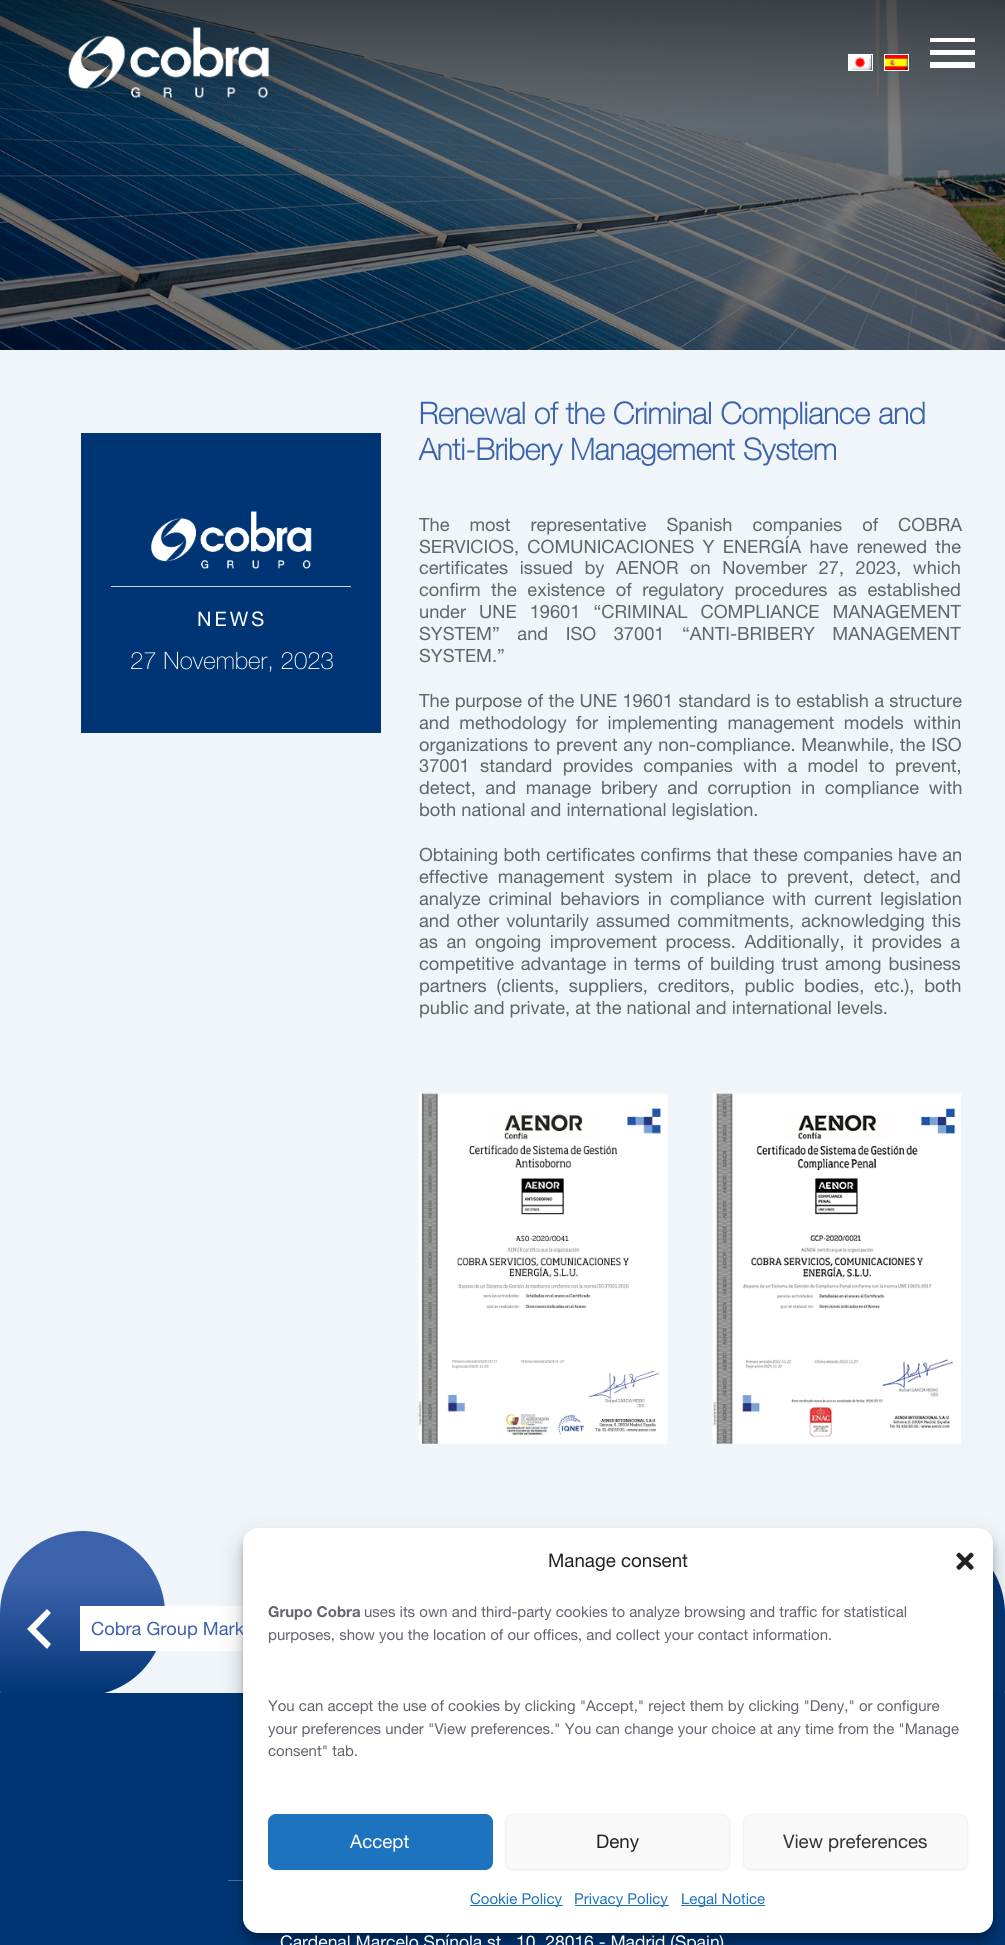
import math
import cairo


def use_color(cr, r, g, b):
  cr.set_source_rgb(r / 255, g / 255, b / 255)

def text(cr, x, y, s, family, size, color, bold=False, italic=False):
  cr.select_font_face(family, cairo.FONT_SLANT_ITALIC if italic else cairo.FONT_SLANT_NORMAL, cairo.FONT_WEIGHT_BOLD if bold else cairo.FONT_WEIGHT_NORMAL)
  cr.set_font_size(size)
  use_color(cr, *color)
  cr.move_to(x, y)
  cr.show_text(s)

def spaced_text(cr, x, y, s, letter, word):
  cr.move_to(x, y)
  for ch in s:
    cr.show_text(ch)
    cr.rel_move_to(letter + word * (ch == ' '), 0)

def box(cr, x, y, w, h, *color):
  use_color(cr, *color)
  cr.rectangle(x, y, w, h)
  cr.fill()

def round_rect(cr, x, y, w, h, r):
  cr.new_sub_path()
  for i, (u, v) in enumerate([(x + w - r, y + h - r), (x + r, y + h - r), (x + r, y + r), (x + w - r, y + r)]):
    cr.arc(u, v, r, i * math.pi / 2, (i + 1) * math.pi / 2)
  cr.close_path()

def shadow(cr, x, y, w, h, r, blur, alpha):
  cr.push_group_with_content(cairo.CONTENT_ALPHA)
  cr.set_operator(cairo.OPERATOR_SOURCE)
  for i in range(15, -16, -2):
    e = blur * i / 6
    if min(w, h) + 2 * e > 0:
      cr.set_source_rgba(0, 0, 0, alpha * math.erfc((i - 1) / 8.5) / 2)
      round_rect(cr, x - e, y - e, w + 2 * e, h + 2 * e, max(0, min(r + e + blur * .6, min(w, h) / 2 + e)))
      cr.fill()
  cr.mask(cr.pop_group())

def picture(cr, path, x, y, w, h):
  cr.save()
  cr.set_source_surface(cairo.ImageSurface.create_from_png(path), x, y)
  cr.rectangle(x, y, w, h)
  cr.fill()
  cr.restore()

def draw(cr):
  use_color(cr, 240, 245, 250)
  cr.paint()
  picture(cr, "img_04.png", 0, 0, 1005, 350)
  picture(cr, "img_01.png", 68, 27, 201, 71)
  cr.rectangle(848.5, 54.5, 24, 16)
  use_color(cr, 255, 255, 255)
  cr.set_line_width(1)
  cr.stroke()
  picture(cr, "img_02.png", 849, 55, 23, 15)
  cr.rectangle(884.5, 54.5, 24, 16)
  cr.stroke()
  picture(cr, "img_03.png", 885, 55, 23, 15)
  cr.new_path()
  cr.move_to(930, 38)
  cr.line_to(975, 38)
  cr.line_to(975, 42)
  cr.line_to(930, 42)
  cr.line_to(930, 38)
  cr.move_to(930, 50)
  cr.line_to(975, 50)
  cr.line_to(975, 55)
  cr.line_to(930, 55)
  cr.line_to(930, 50)
  cr.move_to(930, 62)
  cr.line_to(975, 62)
  cr.line_to(975, 68)
  cr.line_to(930, 68)
  cr.close_path()
  cr.fill()
  box(cr, 81, 433, 300, 300, 0, 53, 117)
  picture(cr, "img_05.png", 151, 511, 161, 58)
  box(cr, 111, 586, 240, 1, 204, 215, 227)
  picture(cr, "img_06.png", 418, 1093, 250, 351)
  picture(cr, "img_07.png", 712, 1093, 249, 351)
  gradient = cairo.LinearGradient(-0.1, 1696, -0.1, 1531)
  gradient.add_color_stop_rgba(0, 0, 0.208, 0.459, 1)
  gradient.add_color_stop_rgba(0.7, 0.235, 0.384, 0.675, 1)
  cr.set_source(gradient)
  cr.new_path()
  cr.move_to(5, 1696)
  cr.line_to(82, 1696)
  cr.curve_to(129, 1696, 166, 1658, 165, 1612)
  cr.curve_to(164, 1568, 128, 1532, 84, 1531)
  cr.curve_to(61, 1531, 39, 1540, 24, 1555)
  cr.curve_to(9, 1570, 0, 1591, 0, 1614)
  cr.line_to(0, 1691)
  cr.curve_to(0, 1694, 2, 1696, 5, 1696)
  cr.close_path()
  cr.fill()
  use_color(cr, 255, 255, 255)
  cr.new_path()
  cr.move_to(51, 1644)
  cr.line_to(36, 1629)
  cr.line_to(51, 1613)
  cr.line_to(47, 1609)
  cr.line_to(27, 1629)
  cr.line_to(47, 1649)
  cr.close_path()
  cr.fill()
  box(cr, 80, 1606, 163, 45, 255, 255, 255)
  gradient = cairo.LinearGradient(1005, 1696, 840, 1696)
  gradient.add_color_stop_rgba(0, 0, 0.208, 0.459, 1)
  gradient.add_color_stop_rgba(0.7, 0.235, 0.384, 0.675, 1)
  cr.set_source(gradient)
  cr.new_path()
  cr.move_to(1005, 1691)
  cr.line_to(1005, 1614)
  cr.curve_to(1005, 1567, 967, 1530, 921, 1531)
  cr.curve_to(877, 1532, 841, 1568, 840, 1612)
  cr.curve_to(840, 1635, 849, 1657, 864, 1672)
  cr.curve_to(879, 1687, 900, 1696, 923, 1696)
  cr.line_to(1000, 1696)
  cr.curve_to(1003, 1696, 1005, 1694, 1005, 1691)
  cr.close_path()
  cr.fill()
  box(cr, 0, 1693, 1005, 252, 0, 53, 117)
  box(cr, 228, 1880, 15, 1, 82, 113, 152)
  use_color(cr, 0, 0, 0)
  shadow(cr, 243, 1535, 750, 405, 15, 4, 0.23)
  shadow(cr, 243, 1540, 750, 405, 15, 12.5, 0.19)
  cr.select_font_face("Helvetica Neue")
  cr.set_font_size(20)
  use_color(cr, 255, 255, 255)
  spaced_text(cr, 197, 626, "NEWS", 3, 0)
  text(cr, 130, 669, "27 November, 2023", "Helvetica Neue Thin", 24, (255, 255, 255))
  text(cr, 419, 424, "Renewal of the Criminal Compliance and", "Helvetica Neue", 30, (60, 98, 172), bold=True)
  text(cr, 419, 460, "Anti-Bribery Management System", "Helvetica Neue", 30, (60, 98, 172), bold=True)
  cr.select_font_face("Helvetica Neue")
  cr.set_font_size(18.25)
  use_color(cr, 98, 100, 110)
  spaced_text(cr, 419, 531, "The most representative Spanish companies of COBRA", 0, 15)
  spaced_text(cr, 419, 553, "SERVICIOS, COMUNICACIONES Y ENERGÍA have renewed the", 0, 3.25)
  spaced_text(cr, 419, 574, "certificates issued by AENOR on November 27, 2023, which", 0, 6.5)
  spaced_text(cr, 419, 596, "confirm the existence of regulatory procedures as established", 0, 5.5)
  spaced_text(cr, 419, 618, "under UNE 19601 “CRIMINAL COMPLIANCE MANAGEMENT", 0, 8)
  spaced_text(cr, 419, 640, "SYSTEM” and ISO 37001 “ANTI-BRIBERY MANAGEMENT", 0, 12.5)
  text(cr, 419, 662, "SYSTEM.”", "Helvetica Neue", 18.25, (98, 100, 110))
  spaced_text(cr, 419, 707, "The purpose of the UNE 19601 standard is to establish a structure", 0, 0.25)
  spaced_text(cr, 419, 729, "and methodology for implementing management models within", 0, 4.5)
  spaced_text(cr, 419, 751, "organizations to prevent any non-compliance. Meanwhile, the ISO", 0, 0.75)
  spaced_text(cr, 419, 772, "37001 standard provides companies with a model to prevent,", 0, 5.25)
  spaced_text(cr, 419, 794, "detect, and manage bribery and corruption in compliance with", 0, 4.5)
  text(cr, 419, 816, "both national and international legislation.", "Helvetica Neue", 18.25, (98, 100, 110))
  spaced_text(cr, 419, 861, "Obtaining both certificates confirms that these companies have an", 0, 0.25)
  spaced_text(cr, 419, 883, "effective management system in place to prevent, detect, and", 0, 4.75)
  spaced_text(cr, 419, 905, "analyze criminal behaviors in compliance with current legislation", 0, 3)
  spaced_text(cr, 419, 927, "and other voluntarily assumed commitments, acknowledging this", 0, 2)
  spaced_text(cr, 419, 948, "as an ongoing improvement process. Additionally, it provides a", 0, 3.5)
  spaced_text(cr, 419, 970, "competitive advantage in terms of building trust among business", 0, 1.75)
  spaced_text(cr, 419, 992, "partners (clients, suppliers, creditors, public bodies, etc.), both", 0, 4.75)
  text(cr, 419, 1014, "public and private, at the national and international levels.", "Helvetica Neue", 18.25, (98, 100, 110))
  text(cr, 91, 1635, "Cobra Group Mark", "Helvetica Neue", 18.25, (60, 98, 172))
  text(cr, 280, 1948, "Cardenal Marcelo Spínola st", "Helvetica Neue", 17.5, (255, 255, 255))
  text(cr, 516, 1948, "10, 28016 - Madrid (Spain)", "Helvetica Neue", 17.5, (255, 255, 255))
  round_rect(cr, 243, 1528, 750, 405, 15)
  cr.fill()
  text(cr, 548, 1567, "Manage consent", "Helvetica Neue", 18.75, (34, 34, 34))
  picture(cr, "img_08.png", 956, 1552, 18, 18)
  text(cr, 268, 1617, "Grupo Cobra", "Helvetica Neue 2", 15, (98, 100, 110), bold=True)
  text(cr, 364, 1617, "uses its own and third-party cookies to analyze browsing and traffic for statistical", "Helvetica Neue", 15, (98, 100, 110))
  text(cr, 268, 1640, "purposes, show you the location of our offices, and collect your contact information.", "Helvetica Neue", 15, (98, 100, 110))
  text(cr, 268, 1711, "You can accept the use of cookies by clicking \"Accept,\" reject them by clicking \"Deny,\" or configure", "Helvetica Neue", 15, (98, 100, 110))
  text(cr, 268, 1734, "your preferences under \"View preferences.\" You can change your choice at any time from the \"Manage", "Helvetica Neue", 15, (98, 100, 110))
  text(cr, 268, 1756, "consent\" tab.", "Helvetica Neue", 15, (98, 100, 110))
  use_color(cr, 0, 0, 0)
  shadow(cr, 268, 1815, 225, 56, 8, 1, 0.05)
  use_color(cr, 30, 115, 190)
  round_rect(cr, 268.5, 1814.5, 224, 55, 7.5)
  cr.fill_preserve()
  cr.stroke()
  text(cr, 350, 1848, "Accept", "Helvetica Neue", 18.75, (255, 255, 255))
  use_color(cr, 0, 0, 0)
  shadow(cr, 505, 1815, 225, 56, 8, 1, 0.05)
  use_color(cr, 249, 249, 249)
  round_rect(cr, 505.5, 1814.5, 224, 55, 7.5)
  cr.fill_preserve()
  use_color(cr, 242, 242, 242)
  cr.stroke()
  text(cr, 596, 1848, "Deny", "Helvetica Neue", 18.75, (34, 34, 34))
  use_color(cr, 0, 0, 0)
  shadow(cr, 743, 1815, 225, 56, 8, 1, 0.05)
  use_color(cr, 249, 249, 249)
  round_rect(cr, 743.5, 1814.5, 224, 55, 7.5)
  cr.fill_preserve()
  use_color(cr, 242, 242, 242)
  cr.stroke()
  text(cr, 783, 1848, "View preferences", "Helvetica Neue", 18.75, (51, 51, 51))
  box(cr, 470, 1905, 93, 1, 30, 115, 190)
  text(cr, 470, 1904, "Cookie Policy", "Helvetica Neue", 15, (30, 115, 190))
  box(cr, 575, 1905, 94, 1, 30, 115, 190)
  text(cr, 574, 1904, "Privacy Policy", "Helvetica Neue", 15, (30, 115, 190))
  box(cr, 681, 1905, 84, 1, 30, 115, 190)
  text(cr, 681, 1904, "Legal Notice", "Helvetica Neue", 15, (30, 115, 190))


surface = cairo.ImageSurface(cairo.FORMAT_RGB24, 1005, 1945)
cr = cairo.Context(surface)
options = cairo.FontOptions()
options.set_hint_metrics(cairo.HINT_METRICS_OFF)
options.set_hint_style(cairo.HINT_STYLE_NONE)
cr.set_font_options(options)
cr.set_miter_limit(4)
draw(cr)
surface.write_to_png("out.png")
